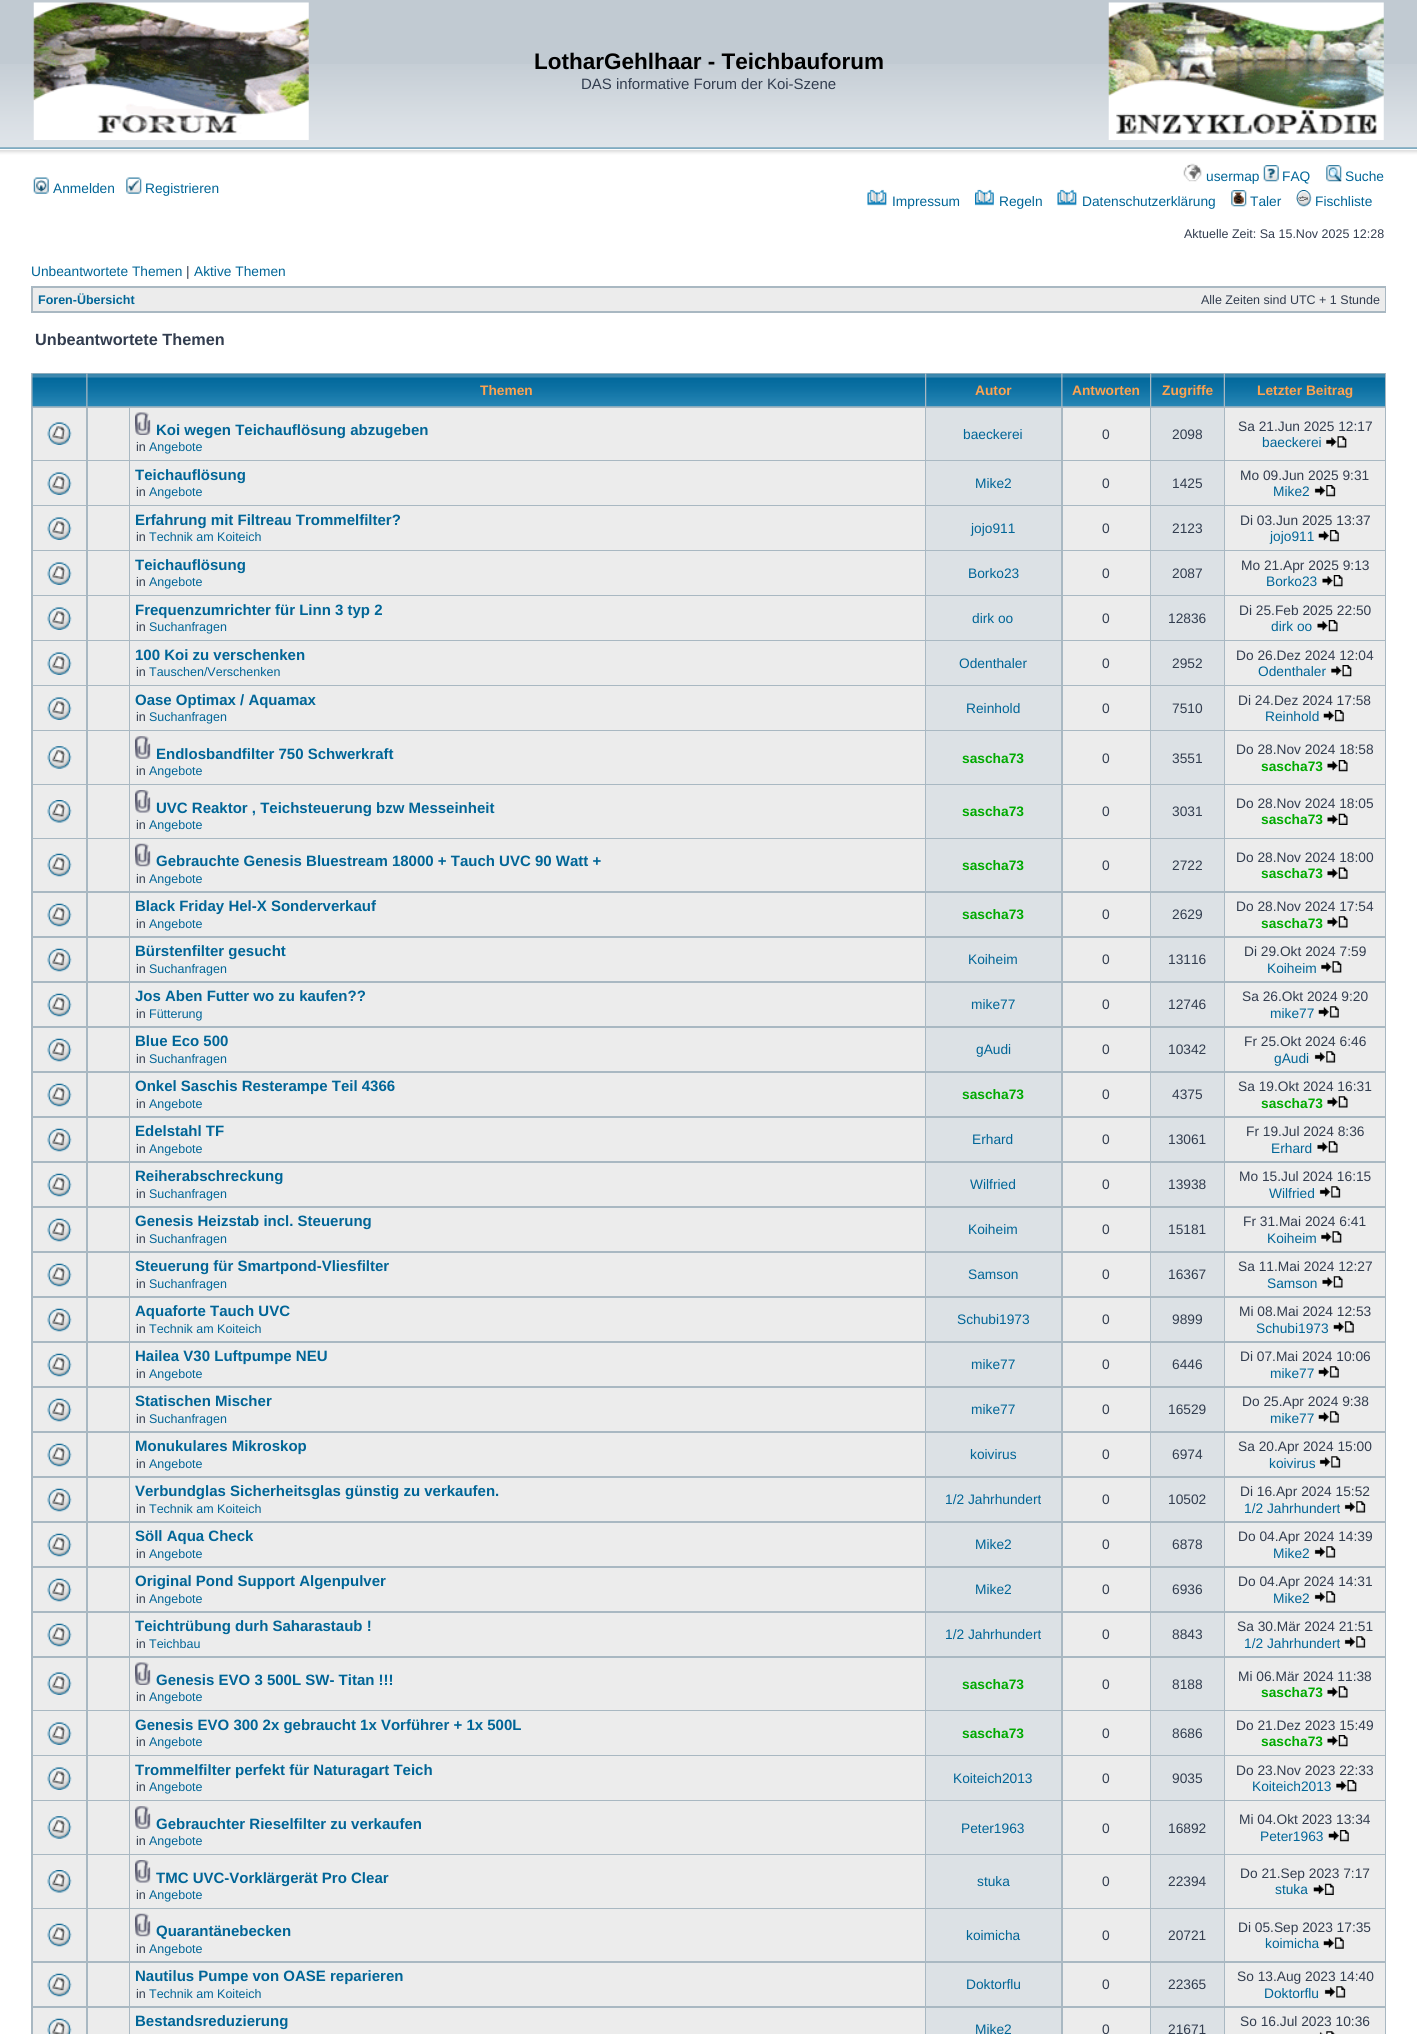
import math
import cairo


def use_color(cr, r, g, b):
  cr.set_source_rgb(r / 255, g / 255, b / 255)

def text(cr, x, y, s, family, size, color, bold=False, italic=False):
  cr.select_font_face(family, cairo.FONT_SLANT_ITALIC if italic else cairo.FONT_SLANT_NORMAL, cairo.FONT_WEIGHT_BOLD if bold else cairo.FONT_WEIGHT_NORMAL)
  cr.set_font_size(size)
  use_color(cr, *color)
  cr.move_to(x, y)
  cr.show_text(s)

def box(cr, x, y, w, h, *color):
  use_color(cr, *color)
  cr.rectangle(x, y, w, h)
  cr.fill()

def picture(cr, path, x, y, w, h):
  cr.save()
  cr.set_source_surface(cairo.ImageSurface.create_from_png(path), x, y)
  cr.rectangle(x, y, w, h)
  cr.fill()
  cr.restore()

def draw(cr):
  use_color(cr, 255, 255, 255)
  cr.paint()
  box(cr, 0, 0, 1417, 64, 193, 202, 210)
  picture(cr, "img_01.png", 0, 64, 1417, 97)
  picture(cr, "img_02.png", 33, 2, 276, 138)
  picture(cr, "img_03.png", 1108, 2, 276, 138)
  picture(cr, "img_04.png", 1183, 163, 19, 19)
  picture(cr, "img_05.png", 1263, 165, 16, 17)
  picture(cr, "img_06.png", 1326, 165, 16, 17)
  picture(cr, "img_07.png", 33, 177, 16, 17)
  picture(cr, "img_08.png", 126, 177, 16, 17)
  picture(cr, "img_09.png", 867, 189, 20, 17)
  picture(cr, "img_10.png", 975, 189, 19, 17)
  picture(cr, "img_11.png", 1057, 189, 20, 17)
  picture(cr, "img_12.png", 1231, 190, 16, 17)
  picture(cr, "img_13.png", 1296, 190, 16, 17)
  box(cr, 31, 286, 1355, 27, 169, 184, 194)
  box(cr, 33, 288, 1352, 23, 236, 236, 236)
  box(cr, 31, 373, 1355, 1661, 169, 184, 194)
  picture(cr, "img_14.png", 32, 373, 55, 34)
  picture(cr, "img_15.png", 87, 373, 838, 34)
  picture(cr, "img_16.png", 926, 373, 136, 34)
  picture(cr, "img_17.png", 1062, 373, 88, 34)
  picture(cr, "img_18.png", 1151, 373, 73, 34)
  picture(cr, "img_19.png", 1225, 373, 160, 34)
  box(cr, 33, 408, 53, 52, 236, 236, 236)
  picture(cr, "img_20.png", 47, 422, 25, 23)
  box(cr, 88, 408, 41, 52, 236, 236, 236)
  box(cr, 130, 408, 795, 52, 236, 236, 236)
  picture(cr, "img_21.png", 135, 412, 16, 23)
  box(cr, 926, 408, 135, 52, 220, 225, 229)
  box(cr, 1063, 408, 87, 52, 236, 236, 236)
  box(cr, 1151, 408, 73, 52, 220, 225, 229)
  box(cr, 1225, 408, 160, 52, 236, 236, 236)
  picture(cr, "img_22.png", 1326, 436, 21, 12)
  box(cr, 33, 461, 53, 44, 236, 236, 236)
  picture(cr, "img_20.png", 47, 472, 25, 23)
  box(cr, 88, 461, 41, 44, 236, 236, 236)
  box(cr, 130, 461, 795, 44, 236, 236, 236)
  box(cr, 926, 461, 135, 44, 220, 225, 229)
  box(cr, 1063, 461, 87, 44, 236, 236, 236)
  box(cr, 1151, 461, 73, 44, 220, 225, 229)
  box(cr, 1225, 461, 160, 44, 236, 236, 236)
  picture(cr, "img_23.png", 1314, 485, 22, 12)
  box(cr, 33, 506, 53, 44, 236, 236, 236)
  picture(cr, "img_20.png", 47, 517, 25, 23)
  box(cr, 88, 506, 41, 44, 236, 236, 236)
  box(cr, 130, 506, 795, 44, 236, 236, 236)
  box(cr, 926, 506, 135, 44, 220, 225, 229)
  box(cr, 1063, 506, 87, 44, 236, 236, 236)
  box(cr, 1151, 506, 73, 44, 220, 225, 229)
  box(cr, 1225, 506, 160, 44, 236, 236, 236)
  picture(cr, "img_24.png", 1318, 530, 21, 12)
  box(cr, 33, 551, 53, 44, 236, 236, 236)
  picture(cr, "img_20.png", 47, 562, 25, 23)
  box(cr, 88, 551, 41, 44, 236, 236, 236)
  box(cr, 130, 551, 795, 44, 236, 236, 236)
  box(cr, 926, 551, 135, 44, 220, 225, 229)
  box(cr, 1063, 551, 87, 44, 236, 236, 236)
  box(cr, 1151, 551, 73, 44, 220, 225, 229)
  box(cr, 1225, 551, 160, 44, 236, 236, 236)
  picture(cr, "img_25.png", 1322, 575, 21, 12)
  box(cr, 33, 596, 53, 44, 236, 236, 236)
  picture(cr, "img_20.png", 47, 607, 25, 23)
  box(cr, 88, 596, 41, 44, 236, 236, 236)
  box(cr, 130, 596, 795, 44, 236, 236, 236)
  box(cr, 926, 596, 135, 44, 220, 225, 229)
  box(cr, 1063, 596, 87, 44, 236, 236, 236)
  box(cr, 1151, 596, 73, 44, 220, 225, 229)
  box(cr, 1225, 596, 160, 44, 236, 236, 236)
  picture(cr, "img_25.png", 1317, 620, 21, 12)
  box(cr, 33, 641, 53, 44, 236, 236, 236)
  picture(cr, "img_20.png", 47, 652, 25, 23)
  box(cr, 88, 641, 41, 44, 236, 236, 236)
  box(cr, 130, 641, 795, 44, 236, 236, 236)
  box(cr, 926, 641, 135, 44, 220, 225, 229)
  box(cr, 1063, 641, 87, 44, 236, 236, 236)
  box(cr, 1151, 641, 73, 44, 220, 225, 229)
  box(cr, 1225, 641, 160, 44, 236, 236, 236)
  picture(cr, "img_26.png", 1331, 665, 21, 12)
  box(cr, 33, 686, 53, 44, 236, 236, 236)
  picture(cr, "img_20.png", 47, 697, 25, 23)
  box(cr, 88, 686, 41, 44, 236, 236, 236)
  box(cr, 130, 686, 795, 44, 236, 236, 236)
  box(cr, 926, 686, 135, 44, 220, 225, 229)
  box(cr, 1063, 686, 87, 44, 236, 236, 236)
  box(cr, 1151, 686, 73, 44, 220, 225, 229)
  box(cr, 1225, 686, 160, 44, 236, 236, 236)
  picture(cr, "img_24.png", 1323, 710, 21, 12)
  box(cr, 33, 731, 53, 53, 236, 236, 236)
  picture(cr, "img_27.png", 47, 746, 25, 23)
  box(cr, 88, 731, 41, 53, 236, 236, 236)
  box(cr, 130, 731, 795, 53, 236, 236, 236)
  picture(cr, "img_28.png", 135, 736, 16, 23)
  box(cr, 926, 731, 135, 53, 220, 225, 229)
  box(cr, 1063, 731, 87, 53, 236, 236, 236)
  box(cr, 1151, 731, 73, 53, 220, 225, 229)
  box(cr, 1225, 731, 160, 53, 236, 236, 236)
  picture(cr, "img_25.png", 1327, 760, 21, 12)
  box(cr, 33, 785, 53, 53, 236, 236, 236)
  picture(cr, "img_29.png", 47, 800, 25, 23)
  box(cr, 88, 785, 41, 53, 236, 236, 236)
  box(cr, 130, 785, 795, 53, 236, 236, 236)
  picture(cr, "img_30.png", 135, 790, 16, 23)
  box(cr, 926, 785, 135, 53, 220, 225, 229)
  box(cr, 1063, 785, 87, 53, 236, 236, 236)
  box(cr, 1151, 785, 73, 53, 220, 225, 229)
  box(cr, 1225, 785, 160, 53, 236, 236, 236)
  picture(cr, "img_31.png", 1327, 813, 21, 12)
  box(cr, 33, 839, 53, 52, 236, 236, 236)
  picture(cr, "img_32.png", 47, 853, 25, 24)
  box(cr, 88, 839, 41, 52, 236, 236, 236)
  box(cr, 130, 839, 795, 52, 236, 236, 236)
  picture(cr, "img_33.png", 135, 843, 16, 24)
  box(cr, 926, 839, 135, 52, 220, 225, 229)
  box(cr, 1063, 839, 87, 52, 236, 236, 236)
  box(cr, 1151, 839, 73, 52, 220, 225, 229)
  box(cr, 1225, 839, 160, 52, 236, 236, 236)
  picture(cr, "img_34.png", 1327, 867, 21, 12)
  box(cr, 33, 893, 53, 43, 236, 236, 236)
  picture(cr, "img_32.png", 47, 903, 25, 24)
  box(cr, 88, 893, 41, 43, 236, 236, 236)
  box(cr, 130, 893, 795, 43, 236, 236, 236)
  box(cr, 926, 893, 135, 43, 220, 225, 229)
  box(cr, 1063, 893, 87, 43, 236, 236, 236)
  box(cr, 1151, 893, 73, 43, 220, 225, 229)
  box(cr, 1225, 893, 160, 43, 236, 236, 236)
  picture(cr, "img_35.png", 1327, 916, 21, 12)
  box(cr, 33, 938, 53, 43, 236, 236, 236)
  picture(cr, "img_32.png", 47, 948, 25, 24)
  box(cr, 88, 938, 41, 43, 236, 236, 236)
  box(cr, 130, 938, 795, 43, 236, 236, 236)
  box(cr, 926, 938, 135, 43, 220, 225, 229)
  box(cr, 1063, 938, 87, 43, 236, 236, 236)
  box(cr, 1151, 938, 73, 43, 220, 225, 229)
  box(cr, 1225, 938, 160, 43, 236, 236, 236)
  picture(cr, "img_22.png", 1321, 961, 21, 12)
  box(cr, 33, 983, 53, 43, 236, 236, 236)
  picture(cr, "img_32.png", 47, 993, 25, 24)
  box(cr, 88, 983, 41, 43, 236, 236, 236)
  box(cr, 130, 983, 795, 43, 236, 236, 236)
  box(cr, 926, 983, 135, 43, 220, 225, 229)
  box(cr, 1063, 983, 87, 43, 236, 236, 236)
  box(cr, 1151, 983, 73, 43, 220, 225, 229)
  box(cr, 1225, 983, 160, 43, 236, 236, 236)
  picture(cr, "img_36.png", 1318, 1006, 21, 12)
  box(cr, 33, 1028, 53, 43, 236, 236, 236)
  picture(cr, "img_32.png", 47, 1038, 25, 24)
  box(cr, 88, 1028, 41, 43, 236, 236, 236)
  box(cr, 130, 1028, 795, 43, 236, 236, 236)
  box(cr, 926, 1028, 135, 43, 220, 225, 229)
  box(cr, 1063, 1028, 87, 43, 236, 236, 236)
  box(cr, 1151, 1028, 73, 43, 220, 225, 229)
  box(cr, 1225, 1028, 160, 43, 236, 236, 236)
  picture(cr, "img_37.png", 1314, 1051, 22, 12)
  box(cr, 33, 1073, 53, 43, 236, 236, 236)
  picture(cr, "img_32.png", 47, 1083, 25, 24)
  box(cr, 88, 1073, 41, 43, 236, 236, 236)
  box(cr, 130, 1073, 795, 43, 236, 236, 236)
  box(cr, 926, 1073, 135, 43, 220, 225, 229)
  box(cr, 1063, 1073, 87, 43, 236, 236, 236)
  box(cr, 1151, 1073, 73, 43, 220, 225, 229)
  box(cr, 1225, 1073, 160, 43, 236, 236, 236)
  picture(cr, "img_35.png", 1327, 1096, 21, 12)
  box(cr, 33, 1118, 53, 43, 236, 236, 236)
  picture(cr, "img_32.png", 47, 1128, 25, 24)
  box(cr, 88, 1118, 41, 43, 236, 236, 236)
  box(cr, 130, 1118, 795, 43, 236, 236, 236)
  box(cr, 926, 1118, 135, 43, 220, 225, 229)
  box(cr, 1063, 1118, 87, 43, 236, 236, 236)
  box(cr, 1151, 1118, 73, 43, 220, 225, 229)
  box(cr, 1225, 1118, 160, 43, 236, 236, 236)
  picture(cr, "img_35.png", 1317, 1141, 21, 12)
  box(cr, 33, 1163, 53, 43, 236, 236, 236)
  picture(cr, "img_38.png", 47, 1173, 25, 24)
  box(cr, 88, 1163, 41, 43, 236, 236, 236)
  box(cr, 130, 1163, 795, 43, 236, 236, 236)
  box(cr, 926, 1163, 135, 43, 220, 225, 229)
  box(cr, 1063, 1163, 87, 43, 236, 236, 236)
  box(cr, 1151, 1163, 73, 43, 220, 225, 229)
  box(cr, 1225, 1163, 160, 43, 236, 236, 236)
  picture(cr, "img_37.png", 1319, 1186, 22, 12)
  box(cr, 33, 1208, 53, 43, 236, 236, 236)
  picture(cr, "img_32.png", 47, 1218, 25, 24)
  box(cr, 88, 1208, 41, 43, 236, 236, 236)
  box(cr, 130, 1208, 795, 43, 236, 236, 236)
  box(cr, 926, 1208, 135, 43, 220, 225, 229)
  box(cr, 1063, 1208, 87, 43, 236, 236, 236)
  box(cr, 1151, 1208, 73, 43, 220, 225, 229)
  box(cr, 1225, 1208, 160, 43, 236, 236, 236)
  picture(cr, "img_22.png", 1321, 1231, 21, 12)
  box(cr, 33, 1253, 53, 43, 236, 236, 236)
  picture(cr, "img_32.png", 47, 1263, 25, 24)
  box(cr, 88, 1253, 41, 43, 236, 236, 236)
  box(cr, 130, 1253, 795, 43, 236, 236, 236)
  box(cr, 926, 1253, 135, 43, 220, 225, 229)
  box(cr, 1063, 1253, 87, 43, 236, 236, 236)
  box(cr, 1151, 1253, 73, 43, 220, 225, 229)
  box(cr, 1225, 1253, 160, 43, 236, 236, 236)
  picture(cr, "img_35.png", 1322, 1276, 21, 12)
  box(cr, 33, 1298, 53, 43, 236, 236, 236)
  picture(cr, "img_32.png", 47, 1308, 25, 24)
  box(cr, 88, 1298, 41, 43, 236, 236, 236)
  box(cr, 130, 1298, 795, 43, 236, 236, 236)
  box(cr, 926, 1298, 135, 43, 220, 225, 229)
  box(cr, 1063, 1298, 87, 43, 236, 236, 236)
  box(cr, 1151, 1298, 73, 43, 220, 225, 229)
  box(cr, 1225, 1298, 160, 43, 236, 236, 236)
  picture(cr, "img_36.png", 1333, 1321, 21, 12)
  box(cr, 33, 1343, 53, 43, 236, 236, 236)
  picture(cr, "img_32.png", 47, 1353, 25, 24)
  box(cr, 88, 1343, 41, 43, 236, 236, 236)
  box(cr, 130, 1343, 795, 43, 236, 236, 236)
  box(cr, 926, 1343, 135, 43, 220, 225, 229)
  box(cr, 1063, 1343, 87, 43, 236, 236, 236)
  box(cr, 1151, 1343, 73, 43, 220, 225, 229)
  box(cr, 1225, 1343, 160, 43, 236, 236, 236)
  picture(cr, "img_36.png", 1318, 1366, 21, 12)
  box(cr, 33, 1388, 53, 43, 236, 236, 236)
  picture(cr, "img_32.png", 47, 1398, 25, 24)
  box(cr, 88, 1388, 41, 43, 236, 236, 236)
  box(cr, 130, 1388, 795, 43, 236, 236, 236)
  box(cr, 926, 1388, 135, 43, 220, 225, 229)
  box(cr, 1063, 1388, 87, 43, 236, 236, 236)
  box(cr, 1151, 1388, 73, 43, 220, 225, 229)
  box(cr, 1225, 1388, 160, 43, 236, 236, 236)
  picture(cr, "img_36.png", 1318, 1411, 21, 12)
  box(cr, 33, 1433, 53, 43, 236, 236, 236)
  picture(cr, "img_32.png", 47, 1443, 25, 24)
  box(cr, 88, 1433, 41, 43, 236, 236, 236)
  box(cr, 130, 1433, 795, 43, 236, 236, 236)
  box(cr, 926, 1433, 135, 43, 220, 225, 229)
  box(cr, 1063, 1433, 87, 43, 236, 236, 236)
  box(cr, 1151, 1433, 73, 43, 220, 225, 229)
  box(cr, 1225, 1433, 160, 43, 236, 236, 236)
  picture(cr, "img_37.png", 1319, 1456, 22, 12)
  box(cr, 33, 1478, 53, 43, 236, 236, 236)
  picture(cr, "img_32.png", 47, 1488, 25, 24)
  box(cr, 88, 1478, 41, 43, 236, 236, 236)
  box(cr, 130, 1478, 795, 43, 236, 236, 236)
  box(cr, 926, 1478, 135, 43, 220, 225, 229)
  box(cr, 1063, 1478, 87, 43, 236, 236, 236)
  box(cr, 1151, 1478, 73, 43, 220, 225, 229)
  box(cr, 1225, 1478, 160, 43, 236, 236, 236)
  picture(cr, "img_37.png", 1344, 1501, 22, 12)
  box(cr, 33, 1523, 53, 43, 236, 236, 236)
  picture(cr, "img_32.png", 47, 1533, 25, 24)
  box(cr, 88, 1523, 41, 43, 236, 236, 236)
  box(cr, 130, 1523, 795, 43, 236, 236, 236)
  box(cr, 926, 1523, 135, 43, 220, 225, 229)
  box(cr, 1063, 1523, 87, 43, 236, 236, 236)
  box(cr, 1151, 1523, 73, 43, 220, 225, 229)
  box(cr, 1225, 1523, 160, 43, 236, 236, 236)
  picture(cr, "img_37.png", 1314, 1546, 22, 12)
  box(cr, 33, 1568, 53, 43, 236, 236, 236)
  picture(cr, "img_32.png", 47, 1578, 25, 24)
  box(cr, 88, 1568, 41, 43, 236, 236, 236)
  box(cr, 130, 1568, 795, 43, 236, 236, 236)
  box(cr, 926, 1568, 135, 43, 220, 225, 229)
  box(cr, 1063, 1568, 87, 43, 236, 236, 236)
  box(cr, 1151, 1568, 73, 43, 220, 225, 229)
  box(cr, 1225, 1568, 160, 43, 236, 236, 236)
  picture(cr, "img_37.png", 1314, 1591, 22, 12)
  box(cr, 33, 1613, 53, 43, 236, 236, 236)
  picture(cr, "img_32.png", 47, 1623, 25, 24)
  box(cr, 88, 1613, 41, 43, 236, 236, 236)
  box(cr, 130, 1613, 795, 43, 236, 236, 236)
  box(cr, 926, 1613, 135, 43, 220, 225, 229)
  box(cr, 1063, 1613, 87, 43, 236, 236, 236)
  box(cr, 1151, 1613, 73, 43, 220, 225, 229)
  box(cr, 1225, 1613, 160, 43, 236, 236, 236)
  picture(cr, "img_37.png", 1344, 1636, 22, 12)
  box(cr, 33, 1658, 53, 52, 236, 236, 236)
  picture(cr, "img_20.png", 47, 1672, 25, 23)
  box(cr, 88, 1658, 41, 52, 236, 236, 236)
  box(cr, 130, 1658, 795, 52, 236, 236, 236)
  picture(cr, "img_21.png", 135, 1662, 16, 23)
  box(cr, 926, 1658, 135, 52, 220, 225, 229)
  box(cr, 1063, 1658, 87, 52, 236, 236, 236)
  box(cr, 1151, 1658, 73, 52, 220, 225, 229)
  box(cr, 1225, 1658, 160, 52, 236, 236, 236)
  picture(cr, "img_35.png", 1327, 1686, 21, 12)
  box(cr, 33, 1711, 53, 44, 236, 236, 236)
  picture(cr, "img_20.png", 47, 1722, 25, 23)
  box(cr, 88, 1711, 41, 44, 236, 236, 236)
  box(cr, 130, 1711, 795, 44, 236, 236, 236)
  box(cr, 926, 1711, 135, 44, 220, 225, 229)
  box(cr, 1063, 1711, 87, 44, 236, 236, 236)
  box(cr, 1151, 1711, 73, 44, 220, 225, 229)
  box(cr, 1225, 1711, 160, 44, 236, 236, 236)
  picture(cr, "img_25.png", 1327, 1735, 21, 12)
  box(cr, 33, 1756, 53, 44, 236, 236, 236)
  picture(cr, "img_20.png", 47, 1767, 25, 23)
  box(cr, 88, 1756, 41, 44, 236, 236, 236)
  box(cr, 130, 1756, 795, 44, 236, 236, 236)
  box(cr, 926, 1756, 135, 44, 220, 225, 229)
  box(cr, 1063, 1756, 87, 44, 236, 236, 236)
  box(cr, 1151, 1756, 73, 44, 220, 225, 229)
  box(cr, 1225, 1756, 160, 44, 236, 236, 236)
  picture(cr, "img_26.png", 1336, 1780, 21, 12)
  box(cr, 33, 1801, 53, 53, 236, 236, 236)
  picture(cr, "img_27.png", 47, 1816, 25, 23)
  box(cr, 88, 1801, 41, 53, 236, 236, 236)
  box(cr, 130, 1801, 795, 53, 236, 236, 236)
  picture(cr, "img_28.png", 135, 1806, 16, 23)
  box(cr, 926, 1801, 135, 53, 220, 225, 229)
  box(cr, 1063, 1801, 87, 53, 236, 236, 236)
  box(cr, 1151, 1801, 73, 53, 220, 225, 229)
  box(cr, 1225, 1801, 160, 53, 236, 236, 236)
  picture(cr, "img_24.png", 1328, 1830, 21, 12)
  box(cr, 33, 1855, 53, 53, 236, 236, 236)
  picture(cr, "img_29.png", 47, 1870, 25, 23)
  box(cr, 88, 1855, 41, 53, 236, 236, 236)
  box(cr, 130, 1855, 795, 53, 236, 236, 236)
  picture(cr, "img_30.png", 135, 1860, 16, 23)
  box(cr, 926, 1855, 135, 53, 220, 225, 229)
  box(cr, 1063, 1855, 87, 53, 236, 236, 236)
  box(cr, 1151, 1855, 73, 53, 220, 225, 229)
  box(cr, 1225, 1855, 160, 53, 236, 236, 236)
  picture(cr, "img_39.png", 1313, 1883, 21, 12)
  box(cr, 33, 1909, 53, 52, 236, 236, 236)
  picture(cr, "img_32.png", 47, 1923, 25, 24)
  box(cr, 88, 1909, 41, 52, 236, 236, 236)
  box(cr, 130, 1909, 795, 52, 236, 236, 236)
  picture(cr, "img_33.png", 135, 1913, 16, 24)
  box(cr, 926, 1909, 135, 52, 220, 225, 229)
  box(cr, 1063, 1909, 87, 52, 236, 236, 236)
  box(cr, 1151, 1909, 73, 52, 220, 225, 229)
  box(cr, 1225, 1909, 160, 52, 236, 236, 236)
  picture(cr, "img_40.png", 1323, 1937, 21, 12)
  box(cr, 33, 1963, 53, 43, 236, 236, 236)
  picture(cr, "img_32.png", 47, 1973, 25, 24)
  box(cr, 88, 1963, 41, 43, 236, 236, 236)
  box(cr, 130, 1963, 795, 43, 236, 236, 236)
  box(cr, 926, 1963, 135, 43, 220, 225, 229)
  box(cr, 1063, 1963, 87, 43, 236, 236, 236)
  box(cr, 1151, 1963, 73, 43, 220, 225, 229)
  box(cr, 1225, 1963, 160, 43, 236, 236, 236)
  picture(cr, "img_37.png", 1324, 1986, 22, 12)
  box(cr, 33, 2008, 53, 26, 236, 236, 236)
  picture(cr, "img_41.png", 47, 2018, 25, 16)
  box(cr, 88, 2008, 41, 26, 236, 236, 236)
  box(cr, 130, 2008, 795, 26, 236, 236, 236)
  box(cr, 1225, 2008, 160, 26, 236, 236, 236)
  picture(cr, "img_42.png", 1319, 2031, 17, 3)
  box(cr, 926, 2008, 135, 26, 220, 225, 229)
  box(cr, 1063, 2008, 87, 26, 236, 236, 236)
  box(cr, 1151, 2008, 73, 26, 220, 225, 229)
  text(cr, 534, 69, "LotharGehlhaar - Teichbauforum", "Liberation Sans", 22.5, (0, 0, 0), bold=True)
  text(cr, 581, 89, "DAS informative Forum der Koi-Szene", "Liberation Sans", 15, (50, 61, 79))
  text(cr, 1206, 181, "usermap", "Liberation Sans", 13.75, (0, 101, 151))
  text(cr, 1282, 181, "FAQ", "Liberation Sans", 13.75, (0, 101, 151))
  text(cr, 1345, 181, "Suche", "Liberation Sans", 13.75, (0, 101, 151))
  text(cr, 53, 193, "Anmelden", "Liberation Sans", 13.75, (0, 101, 151))
  text(cr, 145, 193, "Registrieren", "Liberation Sans", 13.75, (0, 101, 151))
  text(cr, 892, 206, "Impressum", "Liberation Sans", 13.75, (0, 101, 151))
  text(cr, 999, 206, "Regeln", "Liberation Sans", 13.75, (0, 101, 151))
  text(cr, 1082, 206, "Datenschutzerklärung", "Liberation Sans", 13.75, (0, 101, 151))
  text(cr, 1250, 206, "Taler", "Liberation Sans", 13.75, (0, 101, 151))
  text(cr, 1315, 206, "Fischliste", "Liberation Sans", 13.75, (0, 101, 151))
  text(cr, 1184, 238, "Aktuelle Zeit: Sa 15.Nov 2025 12:28", "Liberation Sans", 12.5, (50, 61, 79))
  text(cr, 31, 276, "Unbeantwortete Themen", "Liberation Sans", 13.75, (0, 101, 151))
  text(cr, 186, 276, "|", "Liberation Sans", 13.75, (50, 61, 79))
  text(cr, 194, 276, "Aktive Themen", "Liberation Sans", 13.75, (0, 101, 151))
  text(cr, 38, 304, "Foren-Übersicht", "Liberation Sans", 12.5, (0, 101, 151), bold=True)
  text(cr, 1201, 304, "Alle Zeiten sind UTC + 1 Stunde", "Liberation Sans", 12.5, (50, 61, 79))
  text(cr, 35, 345, "Unbeantwortete Themen", "Liberation Sans", 16.25, (50, 61, 79), bold=True)
  text(cr, 480, 395, "Themen", "Liberation Sans", 13.75, (255, 163, 79), bold=True)
  text(cr, 975, 395, "Autor", "Liberation Sans", 13.75, (255, 163, 79), bold=True)
  text(cr, 1072, 395, "Antworten", "Liberation Sans", 13.75, (255, 163, 79), bold=True)
  text(cr, 1162, 395, "Zugriffe", "Liberation Sans", 13.75, (255, 163, 79), bold=True)
  text(cr, 1257, 395, "Letzter Beitrag", "Liberation Sans", 13.75, (255, 163, 79), bold=True)
  text(cr, 156, 435, "Koi wegen Teichauflösung abzugeben", "Liberation Sans", 15, (0, 101, 151), bold=True)
  text(cr, 136, 451, "in", "Liberation Sans", 12.5, (50, 61, 79))
  text(cr, 149, 451, "Angebote", "Liberation Sans", 12.5, (0, 101, 151))
  text(cr, 963, 439, "baeckerei", "Liberation Sans", 13.75, (0, 101, 151))
  text(cr, 1102, 439, "0", "Liberation Sans", 13.75, (50, 61, 79))
  text(cr, 1172, 439, "2098", "Liberation Sans", 13.75, (50, 61, 79))
  text(cr, 1238, 431, "Sa 21.Jun 2025 12:17", "Liberation Sans", 13.75, (50, 61, 79))
  text(cr, 1262, 447, "baeckerei", "Liberation Sans", 13.75, (0, 101, 151))
  text(cr, 135, 480, "Teichauflösung", "Liberation Sans", 15, (0, 101, 151), bold=True)
  text(cr, 136, 496, "in", "Liberation Sans", 12.5, (50, 61, 79))
  text(cr, 149, 496, "Angebote", "Liberation Sans", 12.5, (0, 101, 151))
  text(cr, 975, 488, "Mike2", "Liberation Sans", 13.75, (0, 101, 151))
  text(cr, 1102, 488, "0", "Liberation Sans", 13.75, (50, 61, 79))
  text(cr, 1172, 488, "1425", "Liberation Sans", 13.75, (50, 61, 79))
  text(cr, 1240, 480, "Mo 09.Jun 2025 9:31", "Liberation Sans", 13.75, (50, 61, 79))
  text(cr, 1273, 496, "Mike2", "Liberation Sans", 13.75, (0, 101, 151))
  text(cr, 135, 525, "Erfahrung mit Filtreau Trommelfilter?", "Liberation Sans", 15, (0, 101, 151), bold=True)
  text(cr, 136, 541, "in", "Liberation Sans", 12.5, (50, 61, 79))
  text(cr, 149, 541, "Technik am Koiteich", "Liberation Sans", 12.5, (0, 101, 151))
  text(cr, 971, 533, "jojo911", "Liberation Sans", 13.75, (0, 101, 151))
  text(cr, 1102, 533, "0", "Liberation Sans", 13.75, (50, 61, 79))
  text(cr, 1172, 533, "2123", "Liberation Sans", 13.75, (50, 61, 79))
  text(cr, 1240, 525, "Di 03.Jun 2025 13:37", "Liberation Sans", 13.75, (50, 61, 79))
  text(cr, 1270, 541, "jojo911", "Liberation Sans", 13.75, (0, 101, 151))
  text(cr, 135, 570, "Teichauflösung", "Liberation Sans", 15, (0, 101, 151), bold=True)
  text(cr, 136, 586, "in", "Liberation Sans", 12.5, (50, 61, 79))
  text(cr, 149, 586, "Angebote", "Liberation Sans", 12.5, (0, 101, 151))
  text(cr, 968, 578, "Borko23", "Liberation Sans", 13.75, (0, 101, 151))
  text(cr, 1102, 578, "0", "Liberation Sans", 13.75, (50, 61, 79))
  text(cr, 1172, 578, "2087", "Liberation Sans", 13.75, (50, 61, 79))
  text(cr, 1241, 570, "Mo 21.Apr 2025 9:13", "Liberation Sans", 13.75, (50, 61, 79))
  text(cr, 1266, 586, "Borko23", "Liberation Sans", 13.75, (0, 101, 151))
  text(cr, 135, 615, "Frequenzumrichter für Linn 3 typ 2", "Liberation Sans", 15, (0, 101, 151), bold=True)
  text(cr, 136, 631, "in", "Liberation Sans", 12.5, (50, 61, 79))
  text(cr, 149, 631, "Suchanfragen", "Liberation Sans", 12.5, (0, 101, 151))
  text(cr, 972, 623, "dirk oo", "Liberation Sans", 13.75, (0, 101, 151))
  text(cr, 1102, 623, "0", "Liberation Sans", 13.75, (50, 61, 79))
  text(cr, 1168, 623, "12836", "Liberation Sans", 13.75, (50, 61, 79))
  text(cr, 1239, 615, "Di 25.Feb 2025 22:50", "Liberation Sans", 13.75, (50, 61, 79))
  text(cr, 1271, 631, "dirk oo", "Liberation Sans", 13.75, (0, 101, 151))
  text(cr, 135, 660, "100 Koi zu verschenken", "Liberation Sans", 15, (0, 101, 151), bold=True)
  text(cr, 136, 676, "in", "Liberation Sans", 12.5, (50, 61, 79))
  text(cr, 149, 676, "Tauschen/Verschenken", "Liberation Sans", 12.5, (0, 101, 151))
  text(cr, 959, 668, "Odenthaler", "Liberation Sans", 13.75, (0, 101, 151))
  text(cr, 1102, 668, "0", "Liberation Sans", 13.75, (50, 61, 79))
  text(cr, 1172, 668, "2952", "Liberation Sans", 13.75, (50, 61, 79))
  text(cr, 1236, 660, "Do 26.Dez 2024 12:04", "Liberation Sans", 13.75, (50, 61, 79))
  text(cr, 1258, 676, "Odenthaler", "Liberation Sans", 13.75, (0, 101, 151))
  text(cr, 135, 705, "Oase Optimax / Aquamax", "Liberation Sans", 15, (0, 101, 151), bold=True)
  text(cr, 136, 721, "in", "Liberation Sans", 12.5, (50, 61, 79))
  text(cr, 149, 721, "Suchanfragen", "Liberation Sans", 12.5, (0, 101, 151))
  text(cr, 966, 713, "Reinhold", "Liberation Sans", 13.75, (0, 101, 151))
  text(cr, 1102, 713, "0", "Liberation Sans", 13.75, (50, 61, 79))
  text(cr, 1172, 713, "7510", "Liberation Sans", 13.75, (50, 61, 79))
  text(cr, 1238, 705, "Di 24.Dez 2024 17:58", "Liberation Sans", 13.75, (50, 61, 79))
  text(cr, 1265, 721, "Reinhold", "Liberation Sans", 13.75, (0, 101, 151))
  text(cr, 156, 759, "Endlosbandfilter 750 Schwerkraft", "Liberation Sans", 15, (0, 101, 151), bold=True)
  text(cr, 136, 775, "in", "Liberation Sans", 12.5, (50, 61, 79))
  text(cr, 149, 775, "Angebote", "Liberation Sans", 12.5, (0, 101, 151))
  text(cr, 962, 763, "sascha73", "Liberation Sans", 13.75, (0, 170, 0), bold=True)
  text(cr, 1102, 763, "0", "Liberation Sans", 13.75, (50, 61, 79))
  text(cr, 1172, 763, "3551", "Liberation Sans", 13.75, (50, 61, 79))
  text(cr, 1236, 754, "Do 28.Nov 2024 18:58", "Liberation Sans", 13.75, (50, 61, 79))
  text(cr, 1261, 771, "sascha73", "Liberation Sans", 13.75, (0, 170, 0), bold=True)
  text(cr, 156, 813, "UVC Reaktor , Teichsteuerung bzw Messeinheit", "Liberation Sans", 15, (0, 101, 151), bold=True)
  text(cr, 136, 829, "in", "Liberation Sans", 12.5, (50, 61, 79))
  text(cr, 149, 829, "Angebote", "Liberation Sans", 12.5, (0, 101, 151))
  text(cr, 962, 816, "sascha73", "Liberation Sans", 13.75, (0, 170, 0), bold=True)
  text(cr, 1102, 816, "0", "Liberation Sans", 13.75, (50, 61, 79))
  text(cr, 1172, 816, "3031", "Liberation Sans", 13.75, (50, 61, 79))
  text(cr, 1236, 808, "Do 28.Nov 2024 18:05", "Liberation Sans", 13.75, (50, 61, 79))
  text(cr, 1261, 824, "sascha73", "Liberation Sans", 13.75, (0, 170, 0), bold=True)
  text(cr, 156, 866, "Gebrauchte Genesis Bluestream 18000 + Tauch UVC 90 Watt +", "Liberation Sans", 15, (0, 101, 151), bold=True)
  text(cr, 136, 883, "in", "Liberation Sans", 12.5, (50, 61, 79))
  text(cr, 149, 883, "Angebote", "Liberation Sans", 12.5, (0, 101, 151))
  text(cr, 962, 870, "sascha73", "Liberation Sans", 13.75, (0, 170, 0), bold=True)
  text(cr, 1102, 870, "0", "Liberation Sans", 13.75, (50, 61, 79))
  text(cr, 1172, 870, "2722", "Liberation Sans", 13.75, (50, 61, 79))
  text(cr, 1236, 862, "Do 28.Nov 2024 18:00", "Liberation Sans", 13.75, (50, 61, 79))
  text(cr, 1261, 878, "sascha73", "Liberation Sans", 13.75, (0, 170, 0), bold=True)
  text(cr, 135, 911, "Black Friday Hel-X Sonderverkauf", "Liberation Sans", 15, (0, 101, 151), bold=True)
  text(cr, 136, 928, "in", "Liberation Sans", 12.5, (50, 61, 79))
  text(cr, 149, 928, "Angebote", "Liberation Sans", 12.5, (0, 101, 151))
  text(cr, 962, 919, "sascha73", "Liberation Sans", 13.75, (0, 170, 0), bold=True)
  text(cr, 1102, 919, "0", "Liberation Sans", 13.75, (50, 61, 79))
  text(cr, 1172, 919, "2629", "Liberation Sans", 13.75, (50, 61, 79))
  text(cr, 1236, 911, "Do 28.Nov 2024 17:54", "Liberation Sans", 13.75, (50, 61, 79))
  text(cr, 1261, 928, "sascha73", "Liberation Sans", 13.75, (0, 170, 0), bold=True)
  text(cr, 135, 956, "Bürstenfilter gesucht", "Liberation Sans", 15, (0, 101, 151), bold=True)
  text(cr, 136, 973, "in", "Liberation Sans", 12.5, (50, 61, 79))
  text(cr, 149, 973, "Suchanfragen", "Liberation Sans", 12.5, (0, 101, 151))
  text(cr, 968, 964, "Koiheim", "Liberation Sans", 13.75, (0, 101, 151))
  text(cr, 1102, 964, "0", "Liberation Sans", 13.75, (50, 61, 79))
  text(cr, 1168, 964, "13116", "Liberation Sans", 13.75, (50, 61, 79))
  text(cr, 1244, 956, "Di 29.Okt 2024 7:59", "Liberation Sans", 13.75, (50, 61, 79))
  text(cr, 1267, 973, "Koiheim", "Liberation Sans", 13.75, (0, 101, 151))
  text(cr, 135, 1001, "Jos Aben Futter wo zu kaufen??", "Liberation Sans", 15, (0, 101, 151), bold=True)
  text(cr, 136, 1018, "in", "Liberation Sans", 12.5, (50, 61, 79))
  text(cr, 149, 1018, "Fütterung", "Liberation Sans", 12.5, (0, 101, 151))
  text(cr, 971, 1009, "mike77", "Liberation Sans", 13.75, (0, 101, 151))
  text(cr, 1102, 1009, "0", "Liberation Sans", 13.75, (50, 61, 79))
  text(cr, 1168, 1009, "12746", "Liberation Sans", 13.75, (50, 61, 79))
  text(cr, 1242, 1001, "Sa 26.Okt 2024 9:20", "Liberation Sans", 13.75, (50, 61, 79))
  text(cr, 1270, 1018, "mike77", "Liberation Sans", 13.75, (0, 101, 151))
  text(cr, 135, 1046, "Blue Eco 500", "Liberation Sans", 15, (0, 101, 151), bold=True)
  text(cr, 136, 1063, "in", "Liberation Sans", 12.5, (50, 61, 79))
  text(cr, 149, 1063, "Suchanfragen", "Liberation Sans", 12.5, (0, 101, 151))
  text(cr, 976, 1054, "gAudi", "Liberation Sans", 13.75, (0, 101, 151))
  text(cr, 1102, 1054, "0", "Liberation Sans", 13.75, (50, 61, 79))
  text(cr, 1168, 1054, "10342", "Liberation Sans", 13.75, (50, 61, 79))
  text(cr, 1244, 1046, "Fr 25.Okt 2024 6:46", "Liberation Sans", 13.75, (50, 61, 79))
  text(cr, 1274, 1063, "gAudi", "Liberation Sans", 13.75, (0, 101, 151))
  text(cr, 135, 1091, "Onkel Saschis Resterampe Teil 4366", "Liberation Sans", 15, (0, 101, 151), bold=True)
  text(cr, 136, 1108, "in", "Liberation Sans", 12.5, (50, 61, 79))
  text(cr, 149, 1108, "Angebote", "Liberation Sans", 12.5, (0, 101, 151))
  text(cr, 962, 1099, "sascha73", "Liberation Sans", 13.75, (0, 170, 0), bold=True)
  text(cr, 1102, 1099, "0", "Liberation Sans", 13.75, (50, 61, 79))
  text(cr, 1172, 1099, "4375", "Liberation Sans", 13.75, (50, 61, 79))
  text(cr, 1238, 1091, "Sa 19.Okt 2024 16:31", "Liberation Sans", 13.75, (50, 61, 79))
  text(cr, 1261, 1108, "sascha73", "Liberation Sans", 13.75, (0, 170, 0), bold=True)
  text(cr, 135, 1136, "Edelstahl TF", "Liberation Sans", 15, (0, 101, 151), bold=True)
  text(cr, 136, 1153, "in", "Liberation Sans", 12.5, (50, 61, 79))
  text(cr, 149, 1153, "Angebote", "Liberation Sans", 12.5, (0, 101, 151))
  text(cr, 972, 1144, "Erhard", "Liberation Sans", 13.75, (0, 101, 151))
  text(cr, 1102, 1144, "0", "Liberation Sans", 13.75, (50, 61, 79))
  text(cr, 1168, 1144, "13061", "Liberation Sans", 13.75, (50, 61, 79))
  text(cr, 1246, 1136, "Fr 19.Jul 2024 8:36", "Liberation Sans", 13.75, (50, 61, 79))
  text(cr, 1271, 1153, "Erhard", "Liberation Sans", 13.75, (0, 101, 151))
  text(cr, 135, 1181, "Reiherabschreckung", "Liberation Sans", 15, (0, 101, 151), bold=True)
  text(cr, 136, 1198, "in", "Liberation Sans", 12.5, (50, 61, 79))
  text(cr, 149, 1198, "Suchanfragen", "Liberation Sans", 12.5, (0, 101, 151))
  text(cr, 970, 1189, "Wilfried", "Liberation Sans", 13.75, (0, 101, 151))
  text(cr, 1102, 1189, "0", "Liberation Sans", 13.75, (50, 61, 79))
  text(cr, 1168, 1189, "13938", "Liberation Sans", 13.75, (50, 61, 79))
  text(cr, 1239, 1181, "Mo 15.Jul 2024 16:15", "Liberation Sans", 13.75, (50, 61, 79))
  text(cr, 1269, 1198, "Wilfried", "Liberation Sans", 13.75, (0, 101, 151))
  text(cr, 135, 1226, "Genesis Heizstab incl. Steuerung", "Liberation Sans", 15, (0, 101, 151), bold=True)
  text(cr, 136, 1243, "in", "Liberation Sans", 12.5, (50, 61, 79))
  text(cr, 149, 1243, "Suchanfragen", "Liberation Sans", 12.5, (0, 101, 151))
  text(cr, 968, 1234, "Koiheim", "Liberation Sans", 13.75, (0, 101, 151))
  text(cr, 1102, 1234, "0", "Liberation Sans", 13.75, (50, 61, 79))
  text(cr, 1168, 1234, "15181", "Liberation Sans", 13.75, (50, 61, 79))
  text(cr, 1243, 1226, "Fr 31.Mai 2024 6:41", "Liberation Sans", 13.75, (50, 61, 79))
  text(cr, 1267, 1243, "Koiheim", "Liberation Sans", 13.75, (0, 101, 151))
  text(cr, 135, 1271, "Steuerung für Smartpond-Vliesfilter", "Liberation Sans", 15, (0, 101, 151), bold=True)
  text(cr, 136, 1288, "in", "Liberation Sans", 12.5, (50, 61, 79))
  text(cr, 149, 1288, "Suchanfragen", "Liberation Sans", 12.5, (0, 101, 151))
  text(cr, 968, 1279, "Samson", "Liberation Sans", 13.75, (0, 101, 151))
  text(cr, 1102, 1279, "0", "Liberation Sans", 13.75, (50, 61, 79))
  text(cr, 1168, 1279, "16367", "Liberation Sans", 13.75, (50, 61, 79))
  text(cr, 1238, 1271, "Sa 11.Mai 2024 12:27", "Liberation Sans", 13.75, (50, 61, 79))
  text(cr, 1267, 1288, "Samson", "Liberation Sans", 13.75, (0, 101, 151))
  text(cr, 135, 1316, "Aquaforte Tauch UVC", "Liberation Sans", 15, (0, 101, 151), bold=True)
  text(cr, 136, 1333, "in", "Liberation Sans", 12.5, (50, 61, 79))
  text(cr, 149, 1333, "Technik am Koiteich", "Liberation Sans", 12.5, (0, 101, 151))
  text(cr, 957, 1324, "Schubi1973", "Liberation Sans", 13.75, (0, 101, 151))
  text(cr, 1102, 1324, "0", "Liberation Sans", 13.75, (50, 61, 79))
  text(cr, 1172, 1324, "9899", "Liberation Sans", 13.75, (50, 61, 79))
  text(cr, 1239, 1316, "Mi 08.Mai 2024 12:53", "Liberation Sans", 13.75, (50, 61, 79))
  text(cr, 1256, 1333, "Schubi1973", "Liberation Sans", 13.75, (0, 101, 151))
  text(cr, 135, 1361, "Hailea V30 Luftpumpe NEU", "Liberation Sans", 15, (0, 101, 151), bold=True)
  text(cr, 136, 1378, "in", "Liberation Sans", 12.5, (50, 61, 79))
  text(cr, 149, 1378, "Angebote", "Liberation Sans", 12.5, (0, 101, 151))
  text(cr, 971, 1369, "mike77", "Liberation Sans", 13.75, (0, 101, 151))
  text(cr, 1102, 1369, "0", "Liberation Sans", 13.75, (50, 61, 79))
  text(cr, 1172, 1369, "6446", "Liberation Sans", 13.75, (50, 61, 79))
  text(cr, 1240, 1361, "Di 07.Mai 2024 10:06", "Liberation Sans", 13.75, (50, 61, 79))
  text(cr, 1270, 1378, "mike77", "Liberation Sans", 13.75, (0, 101, 151))
  text(cr, 135, 1406, "Statischen Mischer", "Liberation Sans", 15, (0, 101, 151), bold=True)
  text(cr, 136, 1423, "in", "Liberation Sans", 12.5, (50, 61, 79))
  text(cr, 149, 1423, "Suchanfragen", "Liberation Sans", 12.5, (0, 101, 151))
  text(cr, 971, 1414, "mike77", "Liberation Sans", 13.75, (0, 101, 151))
  text(cr, 1102, 1414, "0", "Liberation Sans", 13.75, (50, 61, 79))
  text(cr, 1168, 1414, "16529", "Liberation Sans", 13.75, (50, 61, 79))
  text(cr, 1242, 1406, "Do 25.Apr 2024 9:38", "Liberation Sans", 13.75, (50, 61, 79))
  text(cr, 1270, 1423, "mike77", "Liberation Sans", 13.75, (0, 101, 151))
  text(cr, 135, 1451, "Monukulares Mikroskop", "Liberation Sans", 15, (0, 101, 151), bold=True)
  text(cr, 136, 1468, "in", "Liberation Sans", 12.5, (50, 61, 79))
  text(cr, 149, 1468, "Angebote", "Liberation Sans", 12.5, (0, 101, 151))
  text(cr, 970, 1459, "koivirus", "Liberation Sans", 13.75, (0, 101, 151))
  text(cr, 1102, 1459, "0", "Liberation Sans", 13.75, (50, 61, 79))
  text(cr, 1172, 1459, "6974", "Liberation Sans", 13.75, (50, 61, 79))
  text(cr, 1238, 1451, "Sa 20.Apr 2024 15:00", "Liberation Sans", 13.75, (50, 61, 79))
  text(cr, 1269, 1468, "koivirus", "Liberation Sans", 13.75, (0, 101, 151))
  text(cr, 135, 1496, "Verbundglas Sicherheitsglas günstig zu verkaufen.", "Liberation Sans", 15, (0, 101, 151), bold=True)
  text(cr, 136, 1513, "in", "Liberation Sans", 12.5, (50, 61, 79))
  text(cr, 149, 1513, "Technik am Koiteich", "Liberation Sans", 12.5, (0, 101, 151))
  text(cr, 945, 1504, "1/2 Jahrhundert", "Liberation Sans", 13.75, (0, 101, 151))
  text(cr, 1102, 1504, "0", "Liberation Sans", 13.75, (50, 61, 79))
  text(cr, 1168, 1504, "10502", "Liberation Sans", 13.75, (50, 61, 79))
  text(cr, 1240, 1496, "Di 16.Apr 2024 15:52", "Liberation Sans", 13.75, (50, 61, 79))
  text(cr, 1244, 1513, "1/2 Jahrhundert", "Liberation Sans", 13.75, (0, 101, 151))
  text(cr, 135, 1541, "Söll Aqua Check", "Liberation Sans", 15, (0, 101, 151), bold=True)
  text(cr, 136, 1558, "in", "Liberation Sans", 12.5, (50, 61, 79))
  text(cr, 149, 1558, "Angebote", "Liberation Sans", 12.5, (0, 101, 151))
  text(cr, 975, 1549, "Mike2", "Liberation Sans", 13.75, (0, 101, 151))
  text(cr, 1102, 1549, "0", "Liberation Sans", 13.75, (50, 61, 79))
  text(cr, 1172, 1549, "6878", "Liberation Sans", 13.75, (50, 61, 79))
  text(cr, 1238, 1541, "Do 04.Apr 2024 14:39", "Liberation Sans", 13.75, (50, 61, 79))
  text(cr, 1273, 1558, "Mike2", "Liberation Sans", 13.75, (0, 101, 151))
  text(cr, 135, 1586, "Original Pond Support Algenpulver", "Liberation Sans", 15, (0, 101, 151), bold=True)
  text(cr, 136, 1603, "in", "Liberation Sans", 12.5, (50, 61, 79))
  text(cr, 149, 1603, "Angebote", "Liberation Sans", 12.5, (0, 101, 151))
  text(cr, 975, 1594, "Mike2", "Liberation Sans", 13.75, (0, 101, 151))
  text(cr, 1102, 1594, "0", "Liberation Sans", 13.75, (50, 61, 79))
  text(cr, 1172, 1594, "6936", "Liberation Sans", 13.75, (50, 61, 79))
  text(cr, 1238, 1586, "Do 04.Apr 2024 14:31", "Liberation Sans", 13.75, (50, 61, 79))
  text(cr, 1273, 1603, "Mike2", "Liberation Sans", 13.75, (0, 101, 151))
  text(cr, 135, 1631, "Teichtrübung durh Saharastaub !", "Liberation Sans", 15, (0, 101, 151), bold=True)
  text(cr, 136, 1648, "in", "Liberation Sans", 12.5, (50, 61, 79))
  text(cr, 149, 1648, "Teichbau", "Liberation Sans", 12.5, (0, 101, 151))
  text(cr, 945, 1639, "1/2 Jahrhundert", "Liberation Sans", 13.75, (0, 101, 151))
  text(cr, 1102, 1639, "0", "Liberation Sans", 13.75, (50, 61, 79))
  text(cr, 1172, 1639, "8843", "Liberation Sans", 13.75, (50, 61, 79))
  text(cr, 1237, 1631, "Sa 30.Mär 2024 21:51", "Liberation Sans", 13.75, (50, 61, 79))
  text(cr, 1244, 1648, "1/2 Jahrhundert", "Liberation Sans", 13.75, (0, 101, 151))
  text(cr, 156, 1685, "Genesis EVO 3 500L SW- Titan !!!", "Liberation Sans", 15, (0, 101, 151), bold=True)
  text(cr, 136, 1701, "in", "Liberation Sans", 12.5, (50, 61, 79))
  text(cr, 149, 1701, "Angebote", "Liberation Sans", 12.5, (0, 101, 151))
  text(cr, 962, 1689, "sascha73", "Liberation Sans", 13.75, (0, 170, 0), bold=True)
  text(cr, 1102, 1689, "0", "Liberation Sans", 13.75, (50, 61, 79))
  text(cr, 1172, 1689, "8188", "Liberation Sans", 13.75, (50, 61, 79))
  text(cr, 1238, 1681, "Mi 06.Mär 2024 11:38", "Liberation Sans", 13.75, (50, 61, 79))
  text(cr, 1261, 1697, "sascha73", "Liberation Sans", 13.75, (0, 170, 0), bold=True)
  text(cr, 135, 1730, "Genesis EVO 300 2x gebraucht 1x Vorführer + 1x 500L", "Liberation Sans", 15, (0, 101, 151), bold=True)
  text(cr, 136, 1746, "in", "Liberation Sans", 12.5, (50, 61, 79))
  text(cr, 149, 1746, "Angebote", "Liberation Sans", 12.5, (0, 101, 151))
  text(cr, 962, 1738, "sascha73", "Liberation Sans", 13.75, (0, 170, 0), bold=True)
  text(cr, 1102, 1738, "0", "Liberation Sans", 13.75, (50, 61, 79))
  text(cr, 1172, 1738, "8686", "Liberation Sans", 13.75, (50, 61, 79))
  text(cr, 1236, 1730, "Do 21.Dez 2023 15:49", "Liberation Sans", 13.75, (50, 61, 79))
  text(cr, 1261, 1746, "sascha73", "Liberation Sans", 13.75, (0, 170, 0), bold=True)
  text(cr, 135, 1775, "Trommelfilter perfekt für Naturagart Teich", "Liberation Sans", 15, (0, 101, 151), bold=True)
  text(cr, 136, 1791, "in", "Liberation Sans", 12.5, (50, 61, 79))
  text(cr, 149, 1791, "Angebote", "Liberation Sans", 12.5, (0, 101, 151))
  text(cr, 953, 1783, "Koiteich2013", "Liberation Sans", 13.75, (0, 101, 151))
  text(cr, 1102, 1783, "0", "Liberation Sans", 13.75, (50, 61, 79))
  text(cr, 1172, 1783, "9035", "Liberation Sans", 13.75, (50, 61, 79))
  text(cr, 1236, 1775, "Do 23.Nov 2023 22:33", "Liberation Sans", 13.75, (50, 61, 79))
  text(cr, 1252, 1791, "Koiteich2013", "Liberation Sans", 13.75, (0, 101, 151))
  text(cr, 156, 1829, "Gebrauchter Rieselfilter zu verkaufen", "Liberation Sans", 15, (0, 101, 151), bold=True)
  text(cr, 136, 1845, "in", "Liberation Sans", 12.5, (50, 61, 79))
  text(cr, 149, 1845, "Angebote", "Liberation Sans", 12.5, (0, 101, 151))
  text(cr, 961, 1833, "Peter1963", "Liberation Sans", 13.75, (0, 101, 151))
  text(cr, 1102, 1833, "0", "Liberation Sans", 13.75, (50, 61, 79))
  text(cr, 1168, 1833, "16892", "Liberation Sans", 13.75, (50, 61, 79))
  text(cr, 1239, 1824, "Mi 04.Okt 2023 13:34", "Liberation Sans", 13.75, (50, 61, 79))
  text(cr, 1260, 1841, "Peter1963", "Liberation Sans", 13.75, (0, 101, 151))
  text(cr, 156, 1883, "TMC UVC-Vorklärgerät Pro Clear", "Liberation Sans", 15, (0, 101, 151), bold=True)
  text(cr, 136, 1899, "in", "Liberation Sans", 12.5, (50, 61, 79))
  text(cr, 149, 1899, "Angebote", "Liberation Sans", 12.5, (0, 101, 151))
  text(cr, 977, 1886, "stuka", "Liberation Sans", 13.75, (0, 101, 151))
  text(cr, 1102, 1886, "0", "Liberation Sans", 13.75, (50, 61, 79))
  text(cr, 1168, 1886, "22394", "Liberation Sans", 13.75, (50, 61, 79))
  text(cr, 1240, 1878, "Do 21.Sep 2023 7:17", "Liberation Sans", 13.75, (50, 61, 79))
  text(cr, 1275, 1894, "stuka", "Liberation Sans", 13.75, (0, 101, 151))
  text(cr, 156, 1936, "Quarantänebecken", "Liberation Sans", 15, (0, 101, 151), bold=True)
  text(cr, 136, 1953, "in", "Liberation Sans", 12.5, (50, 61, 79))
  text(cr, 149, 1953, "Angebote", "Liberation Sans", 12.5, (0, 101, 151))
  text(cr, 966, 1940, "koimicha", "Liberation Sans", 13.75, (0, 101, 151))
  text(cr, 1102, 1940, "0", "Liberation Sans", 13.75, (50, 61, 79))
  text(cr, 1168, 1940, "20721", "Liberation Sans", 13.75, (50, 61, 79))
  text(cr, 1238, 1932, "Di 05.Sep 2023 17:35", "Liberation Sans", 13.75, (50, 61, 79))
  text(cr, 1265, 1948, "koimicha", "Liberation Sans", 13.75, (0, 101, 151))
  text(cr, 135, 1981, "Nautilus Pumpe von OASE reparieren", "Liberation Sans", 15, (0, 101, 151), bold=True)
  text(cr, 136, 1998, "in", "Liberation Sans", 12.5, (50, 61, 79))
  text(cr, 149, 1998, "Technik am Koiteich", "Liberation Sans", 12.5, (0, 101, 151))
  text(cr, 966, 1989, "Doktorflu", "Liberation Sans", 13.75, (0, 101, 151))
  text(cr, 1102, 1989, "0", "Liberation Sans", 13.75, (50, 61, 79))
  text(cr, 1168, 1989, "22365", "Liberation Sans", 13.75, (50, 61, 79))
  text(cr, 1237, 1981, "So 13.Aug 2023 14:40", "Liberation Sans", 13.75, (50, 61, 79))
  text(cr, 1264, 1998, "Doktorflu", "Liberation Sans", 13.75, (0, 101, 151))
  text(cr, 135, 2026, "Bestandsreduzierung", "Liberation Sans", 15, (0, 101, 151), bold=True)
  text(cr, 1240, 2026, "So 16.Jul 2023 10:36", "Liberation Sans", 13.75, (50, 61, 79))
  text(cr, 975, 2034, "Mike2", "Liberation Sans", 13.75, (0, 101, 151))
  text(cr, 1102, 2034, "0", "Liberation Sans", 13.75, (50, 61, 79))
  text(cr, 1168, 2034, "21671", "Liberation Sans", 13.75, (50, 61, 79))


surface = cairo.ImageSurface(cairo.FORMAT_RGB24, 1417, 2034)
cr = cairo.Context(surface)
options = cairo.FontOptions()
options.set_hint_metrics(cairo.HINT_METRICS_OFF)
options.set_hint_style(cairo.HINT_STYLE_NONE)
cr.set_font_options(options)
cr.set_miter_limit(4)
draw(cr)
surface.write_to_png("out.png")
